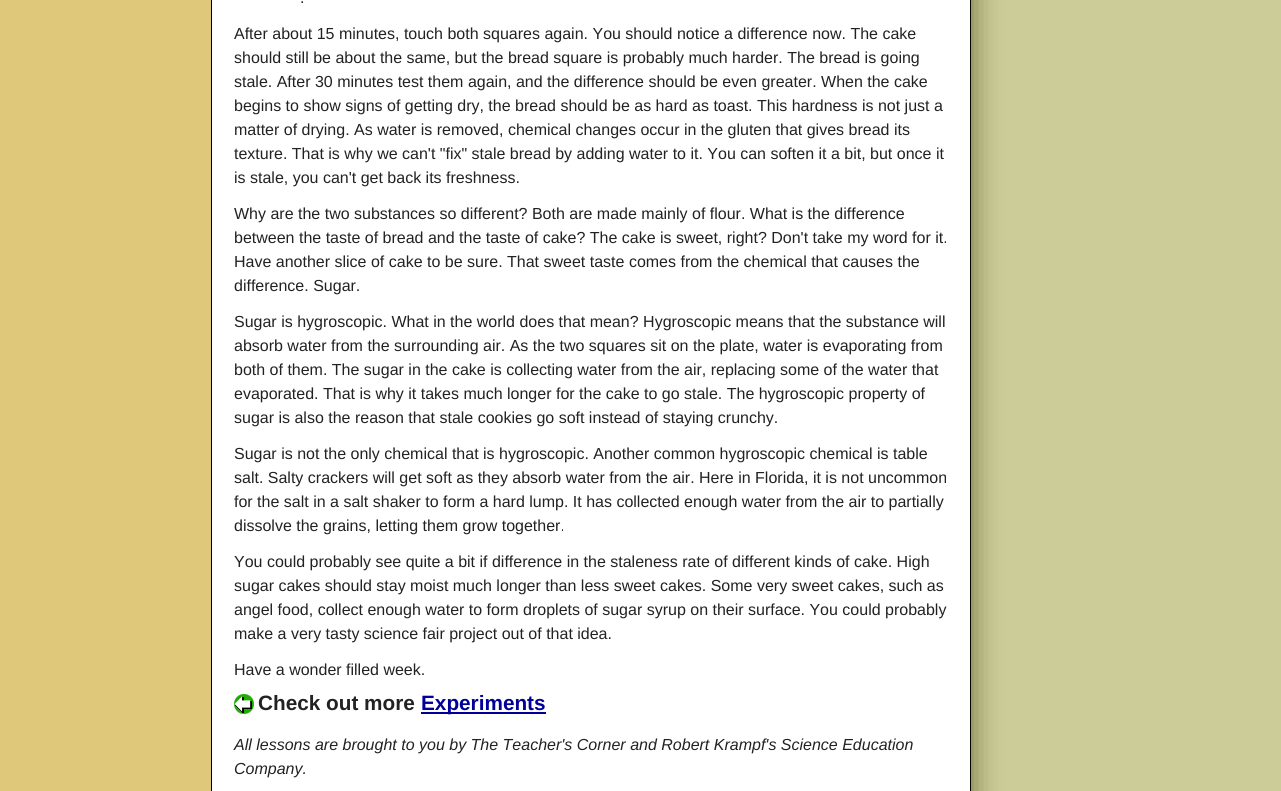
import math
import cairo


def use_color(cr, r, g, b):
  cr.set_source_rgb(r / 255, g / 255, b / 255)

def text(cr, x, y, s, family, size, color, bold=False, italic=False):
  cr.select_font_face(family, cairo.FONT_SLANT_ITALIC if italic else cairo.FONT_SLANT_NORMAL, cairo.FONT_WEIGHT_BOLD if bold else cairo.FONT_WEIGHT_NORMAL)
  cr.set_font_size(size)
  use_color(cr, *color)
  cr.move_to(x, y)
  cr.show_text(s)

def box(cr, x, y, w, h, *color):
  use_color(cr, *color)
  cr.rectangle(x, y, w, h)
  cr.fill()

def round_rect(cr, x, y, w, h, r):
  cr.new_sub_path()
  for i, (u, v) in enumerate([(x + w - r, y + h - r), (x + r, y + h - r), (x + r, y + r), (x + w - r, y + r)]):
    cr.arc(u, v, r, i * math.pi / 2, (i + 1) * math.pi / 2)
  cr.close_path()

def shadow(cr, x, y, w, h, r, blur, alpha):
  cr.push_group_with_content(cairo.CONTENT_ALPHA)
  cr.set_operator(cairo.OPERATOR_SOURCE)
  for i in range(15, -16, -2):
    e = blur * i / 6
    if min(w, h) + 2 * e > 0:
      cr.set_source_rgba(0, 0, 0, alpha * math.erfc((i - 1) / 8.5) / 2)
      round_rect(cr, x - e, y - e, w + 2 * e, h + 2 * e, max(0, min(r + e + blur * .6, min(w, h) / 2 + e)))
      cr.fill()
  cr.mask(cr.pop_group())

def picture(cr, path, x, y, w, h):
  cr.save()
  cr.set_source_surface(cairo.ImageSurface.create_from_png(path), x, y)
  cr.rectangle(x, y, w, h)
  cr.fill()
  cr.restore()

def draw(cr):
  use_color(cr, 204, 204, 153)
  cr.paint()
  use_color(cr, 102, 102, 51)
  shadow(cr, 0, -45, 971, 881, 0, 15, 1)
  box(cr, 0, 0, 211, 791, 223, 200, 122)
  box(cr, 212, 0, 758, 791, 255, 255, 255)
  box(cr, 970, 0, 1, 791, 0, 0, 0)
  box(cr, 211, 0, 1, 791, 0, 0, 0)
  picture(cr, "img_01.png", 234, 694, 20, 20)
  box(cr, 421, 712, 125, 2, 0, 0, 153)
  text(cr, 300, 3, ".", "Liberation Sans", 16, (34, 34, 34))
  text(cr, 234, 39, "After about 15 minutes, touch both squares again. You should notice a difference now. The cake", "Liberation Sans", 16, (34, 34, 34))
  text(cr, 234, 63, "should still be about the same, but the bread square is probably much harder. The bread is going", "Liberation Sans", 16, (34, 34, 34))
  text(cr, 234, 87, "stale. After 30 minutes test them again, and the difference should be even greater. When the cake", "Liberation Sans", 16, (34, 34, 34))
  text(cr, 234, 111, "begins to show signs of getting dry, the bread should be as hard as toast. This hardness is not just a", "Liberation Sans", 16, (34, 34, 34))
  text(cr, 234, 135, "matter of drying. As water is removed, chemical changes occur in the gluten that gives bread its", "Liberation Sans", 16, (34, 34, 34))
  text(cr, 234, 159, "texture. That is why we can't \"fix\" stale bread by adding water to it. You can soften it a bit, but once it", "Liberation Sans", 16, (34, 34, 34))
  text(cr, 234, 183, "is stale, you can't get back its freshness.", "Liberation Sans", 16, (34, 34, 34))
  text(cr, 234, 219, "Why are the two substances so different? Both are made mainly of flour. What is the difference", "Liberation Sans", 16, (34, 34, 34))
  text(cr, 234, 243, "between the taste of bread and the taste of cake? The cake is sweet, right? Don't take my word for it.", "Liberation Sans", 16, (34, 34, 34))
  text(cr, 234, 267, "Have another slice of cake to be sure. That sweet taste comes from the chemical that causes the", "Liberation Sans", 16, (34, 34, 34))
  text(cr, 234, 291, "difference. Sugar.", "Liberation Sans", 16, (34, 34, 34))
  text(cr, 234, 327, "Sugar is hygroscopic. What in the world does that mean? Hygroscopic means that the substance will", "Liberation Sans", 16, (34, 34, 34))
  text(cr, 234, 351, "absorb water from the surrounding air. As the two squares sit on the plate, water is evaporating from", "Liberation Sans", 16, (34, 34, 34))
  text(cr, 234, 375, "both of them. The sugar in the cake is collecting water from the air, replacing some of the water that", "Liberation Sans", 16, (34, 34, 34))
  text(cr, 234, 399, "evaporated. That is why it takes much longer for the cake to go stale. The hygroscopic property of", "Liberation Sans", 16, (34, 34, 34))
  text(cr, 234, 423, "sugar is also the reason that stale cookies go soft instead of staying crunchy.", "Liberation Sans", 16, (34, 34, 34))
  text(cr, 234, 459, "Sugar is not the only chemical that is hygroscopic. Another common hygroscopic chemical is table", "Liberation Sans", 16, (34, 34, 34))
  text(cr, 234, 483, "salt. Salty crackers will get soft as they absorb water from the air. Here in Florida, it is not uncommon", "Liberation Sans", 16, (34, 34, 34))
  text(cr, 234, 507, "for the salt in a salt shaker to form a hard lump. It has collected enough water from the air to partially", "Liberation Sans", 16, (34, 34, 34))
  text(cr, 234, 531, "dissolve the grains, letting them grow together.", "Liberation Sans", 16, (34, 34, 34))
  text(cr, 234, 567, "You could probably see quite a bit if difference in the staleness rate of different kinds of cake. High", "Liberation Sans", 16, (34, 34, 34))
  text(cr, 234, 591, "sugar cakes should stay moist much longer than less sweet cakes. Some very sweet cakes, such as", "Liberation Sans", 16, (34, 34, 34))
  text(cr, 234, 615, "angel food, collect enough water to form droplets of sugar syrup on their surface. You could probably", "Liberation Sans", 16, (34, 34, 34))
  text(cr, 234, 639, "make a very tasty science fair project out of that idea.", "Liberation Sans", 16, (34, 34, 34))
  text(cr, 234, 675, "Have a wonder filled week.", "Liberation Sans", 16, (34, 34, 34))
  text(cr, 258, 710, "Check out more", "Liberation Sans", 20.75, (34, 34, 34), bold=True)
  text(cr, 421, 710, "Experiments", "Liberation Sans", 20.75, (0, 0, 153), bold=True)
  text(cr, 234, 750, "All lessons are brought to you by The Teacher's Corner and Robert Krampf's Science Education", "Liberation Sans", 16, (34, 34, 34), italic=True)
  text(cr, 234, 774, "Company.", "Liberation Sans", 16, (34, 34, 34), italic=True)


surface = cairo.ImageSurface(cairo.FORMAT_RGB24, 1281, 791)
cr = cairo.Context(surface)
options = cairo.FontOptions()
options.set_hint_metrics(cairo.HINT_METRICS_OFF)
options.set_hint_style(cairo.HINT_STYLE_NONE)
cr.set_font_options(options)
cr.set_miter_limit(4)
draw(cr)
surface.write_to_png("out.png")
